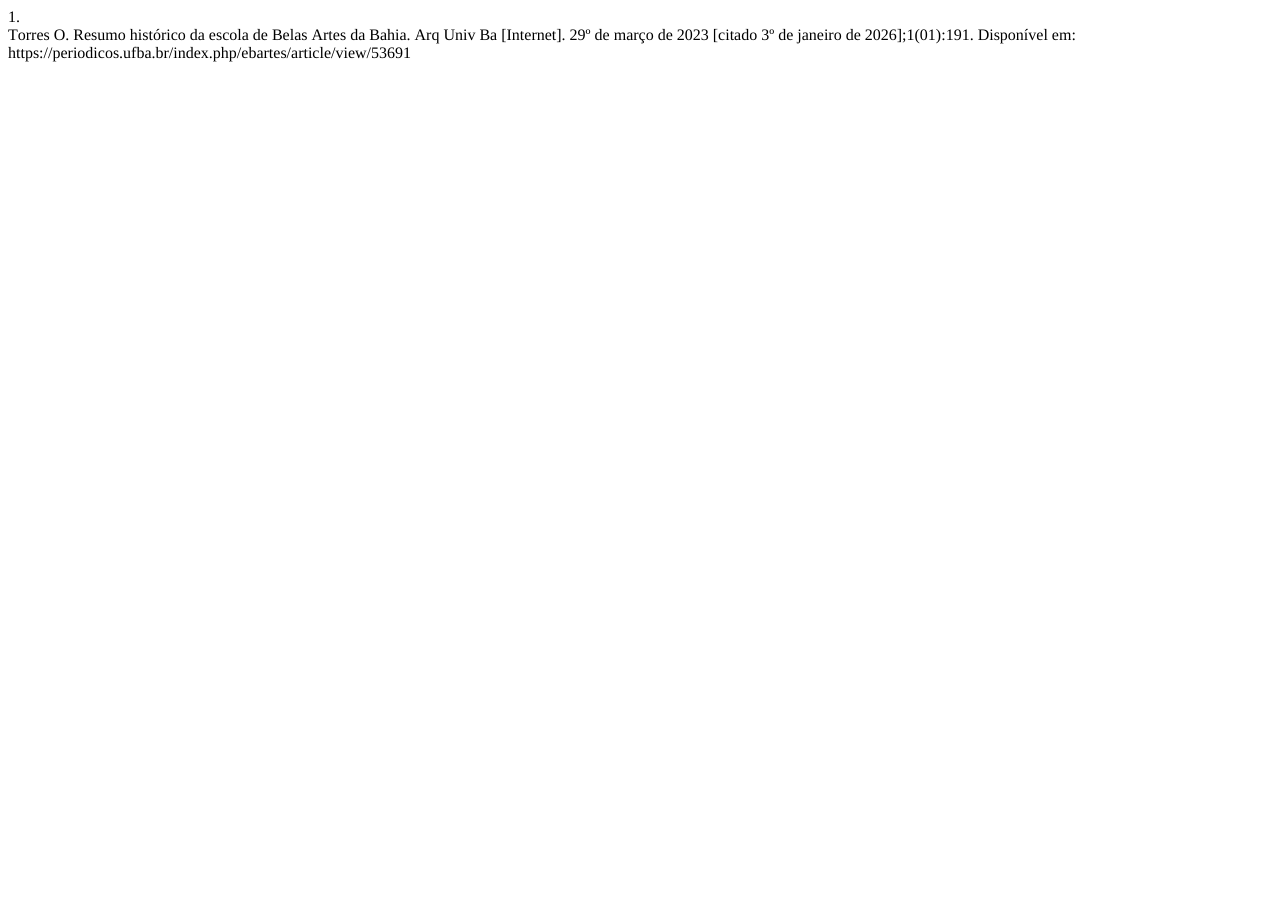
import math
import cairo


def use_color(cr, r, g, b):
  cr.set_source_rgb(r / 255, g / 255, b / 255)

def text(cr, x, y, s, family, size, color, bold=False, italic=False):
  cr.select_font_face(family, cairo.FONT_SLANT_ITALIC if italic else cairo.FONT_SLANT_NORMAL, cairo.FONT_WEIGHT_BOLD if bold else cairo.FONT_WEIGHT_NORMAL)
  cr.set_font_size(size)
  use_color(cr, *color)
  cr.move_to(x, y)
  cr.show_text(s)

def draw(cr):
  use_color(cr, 255, 255, 255)
  cr.paint()
  text(cr, 8, 22, "1.", "Liberation Serif", 16, (0, 0, 0))
  text(cr, 8, 40, "Torres O. Resumo histórico da escola de Belas Artes da Bahia. Arq Univ Ba [Internet]. 29º de março de 2023 [citado 3º de janeiro de 2026];1(01):191. Disponível em:", "Liberation Serif", 16, (0, 0, 0))
  text(cr, 8, 58, "https://periodicos.ufba.br/index.php/ebartes/article/view/53691", "Liberation Serif", 16, (0, 0, 0))


surface = cairo.ImageSurface(cairo.FORMAT_RGB24, 1287, 915)
cr = cairo.Context(surface)
options = cairo.FontOptions()
options.set_hint_metrics(cairo.HINT_METRICS_OFF)
options.set_hint_style(cairo.HINT_STYLE_NONE)
cr.set_font_options(options)
cr.set_miter_limit(4)
draw(cr)
surface.write_to_png("out.png")
